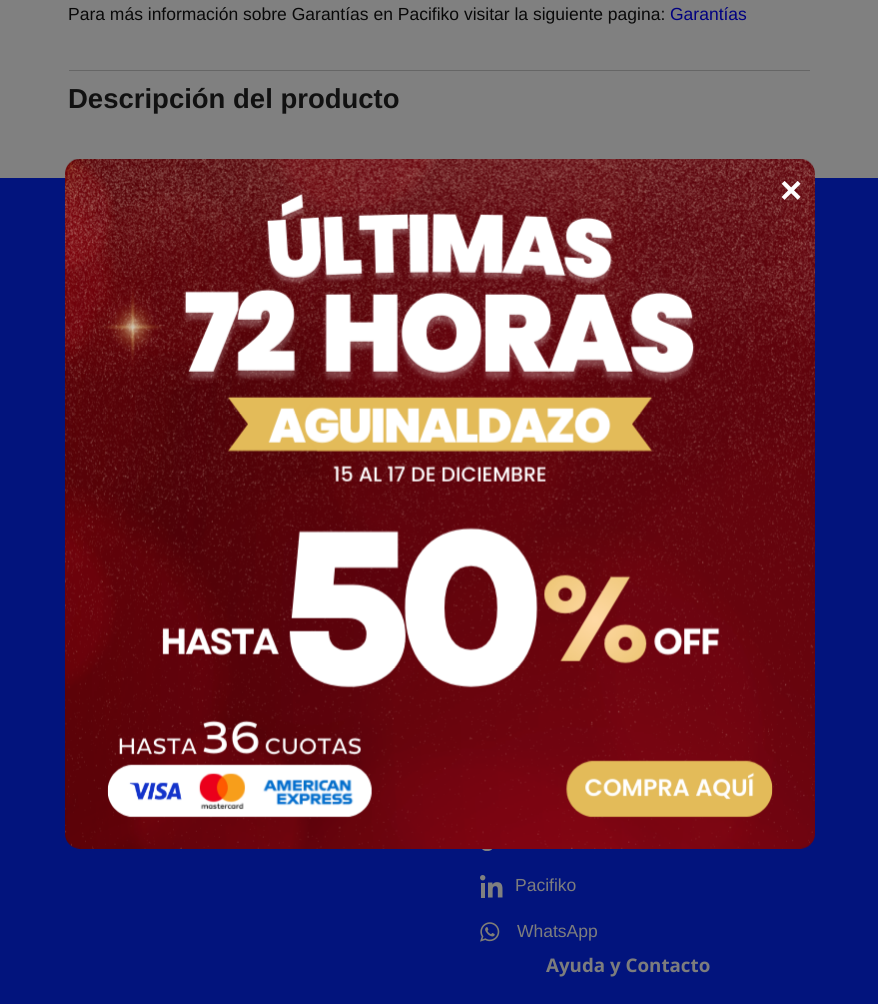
import math
import cairo


def use_color(cr, r, g, b):
  cr.set_source_rgb(r / 255, g / 255, b / 255)

def text(cr, x, y, s, family, size, color, bold=False, italic=False):
  cr.select_font_face(family, cairo.FONT_SLANT_ITALIC if italic else cairo.FONT_SLANT_NORMAL, cairo.FONT_WEIGHT_BOLD if bold else cairo.FONT_WEIGHT_NORMAL)
  cr.set_font_size(size)
  use_color(cr, *color)
  cr.move_to(x, y)
  cr.show_text(s)

def box(cr, x, y, w, h, *color):
  use_color(cr, *color)
  cr.rectangle(x, y, w, h)
  cr.fill()

def picture(cr, path, x, y, w, h):
  cr.save()
  cr.set_source_surface(cairo.ImageSurface.create_from_png(path), x, y)
  cr.rectangle(x, y, w, h)
  cr.fill()
  cr.restore()

def draw(cr):
  use_color(cr, 128, 128, 128)
  cr.paint()
  box(cr, 69, 70, 741, 1, 102, 102, 102)
  box(cr, 0, 178, 878, 826, 2, 20, 125)
  picture(cr, "img_01.png", 65, 159, 750, 690)
  picture(cr, "img_02.png", 482, 849, 11, 2)
  picture(cr, "img_03.png", 480, 875, 23, 23)
  picture(cr, "img_04.png", 480, 922, 20, 20)
  text(cr, 68, 20, "Para más información sobre Garantías en Pacifiko visitar la siguiente pagina:", "Liberation Sans", 17.5, (9, 9, 9))
  text(cr, 670, 20, "Garantías", "Liberation Sans", 17.5, (0, 0, 128))
  text(cr, 68, 108, "Descripción del producto", "Liberation Sans", 27.5, (17, 17, 17), bold=True)
  text(cr, 780, 203, "×", "Liberation Sans", 38, (255, 255, 255), bold=True)
  text(cr, 515, 891, "Pacifiko", "Liberation Sans", 17.5, (125, 125, 125))
  text(cr, 517, 937, "WhatsApp", "Liberation Sans", 17.5, (125, 125, 125))
  text(cr, 546, 972, "Ayuda y Contacto", "Open Sans", 18.75, (125, 125, 125), bold=True)


surface = cairo.ImageSurface(cairo.FORMAT_RGB24, 878, 1004)
cr = cairo.Context(surface)
options = cairo.FontOptions()
options.set_hint_metrics(cairo.HINT_METRICS_OFF)
options.set_hint_style(cairo.HINT_STYLE_NONE)
cr.set_font_options(options)
cr.set_miter_limit(4)
draw(cr)
surface.write_to_png("out.png")
